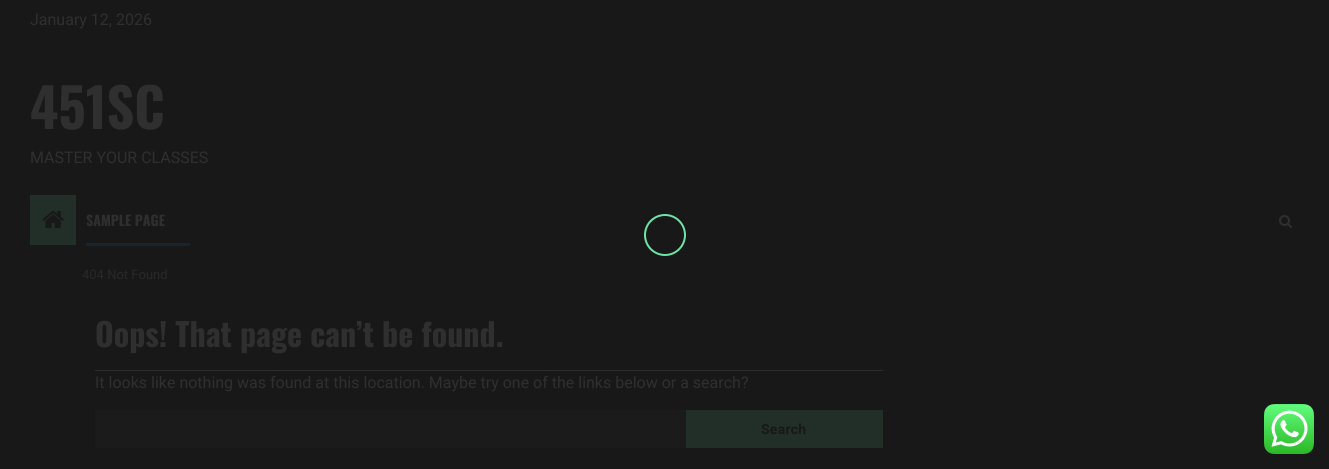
import math
import cairo


def use_color(cr, r, g, b):
  cr.set_source_rgb(r / 255, g / 255, b / 255)

def text(cr, x, y, s, family, size, color, bold=False, italic=False):
  cr.select_font_face(family, cairo.FONT_SLANT_ITALIC if italic else cairo.FONT_SLANT_NORMAL, cairo.FONT_WEIGHT_BOLD if bold else cairo.FONT_WEIGHT_NORMAL)
  cr.set_font_size(size)
  use_color(cr, *color)
  cr.move_to(x, y)
  cr.show_text(s)

def spaced_text(cr, x, y, s, letter, word):
  cr.move_to(x, y)
  for ch in s:
    cr.show_text(ch)
    cr.rel_move_to(letter + word * (ch == ' '), 0)

def box(cr, x, y, w, h, *color):
  use_color(cr, *color)
  cr.rectangle(x, y, w, h)
  cr.fill()

def picture(cr, path, x, y, w, h):
  cr.save()
  cr.set_source_surface(cairo.ImageSurface.create_from_png(path), x, y)
  cr.rectangle(x, y, w, h)
  cr.fill()
  cr.restore()

def draw(cr):
  use_color(cr, 24, 24, 24)
  cr.paint()
  box(cr, 30, 195, 46, 50, 34, 47, 40)
  picture(cr, "img_01.png", 42, 210, 22, 18)
  box(cr, 86, 243, 104, 3, 25, 37, 46)
  picture(cr, "img_02.png", 1279, 215, 13, 13)
  box(cr, 95, 370, 788, 1, 45, 45, 45)
  box(cr, 95, 410, 591, 38, 27, 27, 27)
  box(cr, 686, 410, 197, 38, 34, 47, 40)
  picture(cr, "img_03.png", 1264, 404, 50, 50)
  cr.arc(665, 235, 20, 0, 2 * math.pi)
  use_color(cr, 110, 227, 166)
  cr.stroke()
  text(cr, 30, 25, "January 12, 2026", "Roboto", 16, (47, 47, 47))
  text(cr, 30, 129, "451SC", "Oswald", 54, (47, 47, 47), bold=True)
  text(cr, 30, 163, "MASTER YOUR CLASSES", "Roboto", 16, (47, 47, 47))
  text(cr, 86, 226, "SAMPLE PAGE", "Oswald", 14, (47, 47, 47), bold=True)
  text(cr, 82, 279, "404 Not Found", "Roboto", 13, (40, 40, 40))
  text(cr, 95, 347, "Oops! That page can’t be found.", "Oswald", 32, (47, 47, 47), bold=True)
  text(cr, 95, 388, "It looks like nothing was found at this location. Maybe try one of the links below or a search?", "Roboto", 16, (47, 47, 47))
  cr.select_font_face("Roboto", cairo.FONT_SLANT_NORMAL, cairo.FONT_WEIGHT_BOLD)
  cr.set_font_size(14)
  use_color(cr, 24, 24, 24)
  spaced_text(cr, 761, 434, "Search", 0.25, 0)


surface = cairo.ImageSurface(cairo.FORMAT_RGB24, 1329, 469)
cr = cairo.Context(surface)
options = cairo.FontOptions()
options.set_hint_metrics(cairo.HINT_METRICS_OFF)
options.set_hint_style(cairo.HINT_STYLE_NONE)
cr.set_font_options(options)
cr.set_miter_limit(4)
draw(cr)
surface.write_to_png("out.png")
